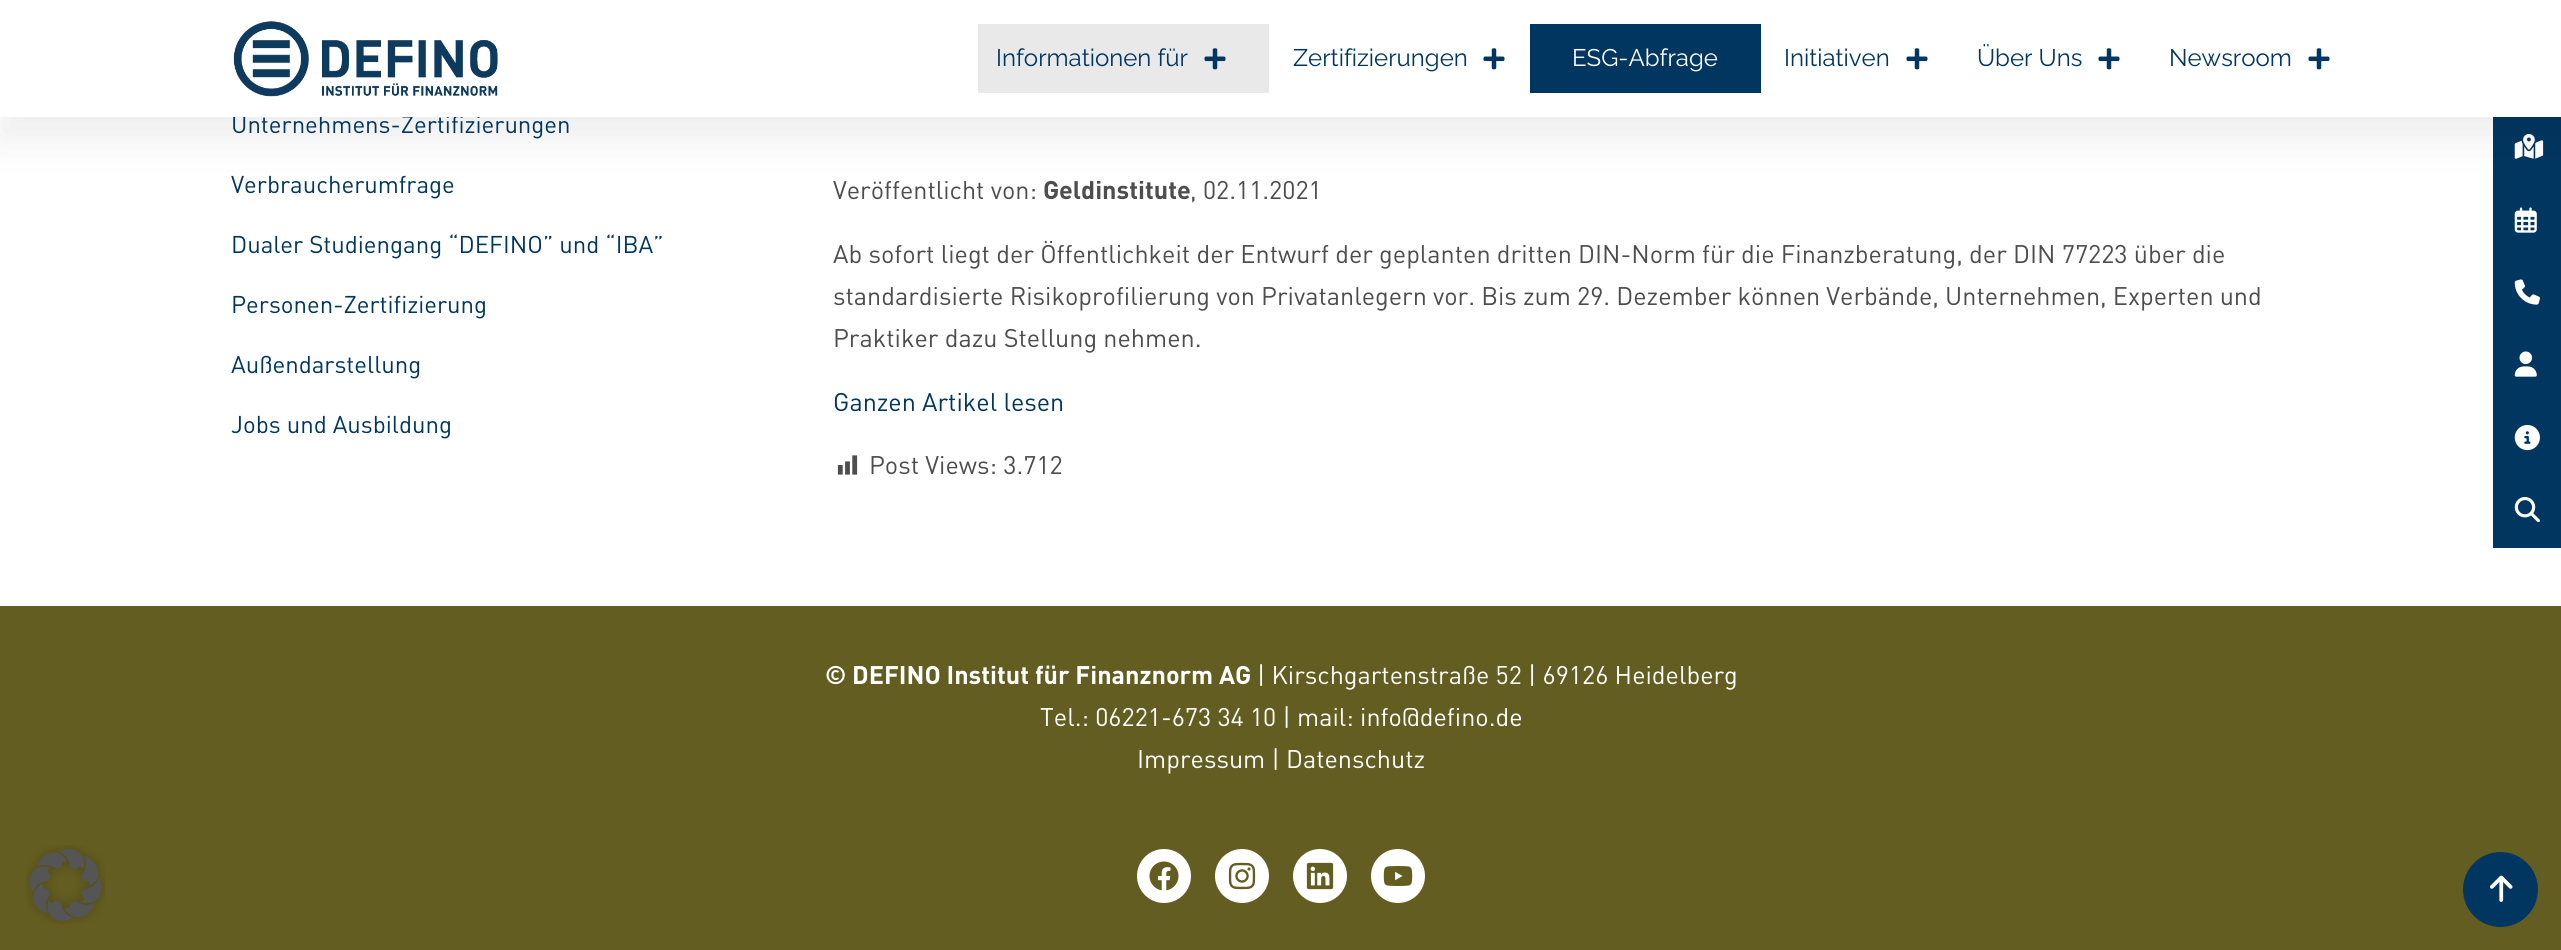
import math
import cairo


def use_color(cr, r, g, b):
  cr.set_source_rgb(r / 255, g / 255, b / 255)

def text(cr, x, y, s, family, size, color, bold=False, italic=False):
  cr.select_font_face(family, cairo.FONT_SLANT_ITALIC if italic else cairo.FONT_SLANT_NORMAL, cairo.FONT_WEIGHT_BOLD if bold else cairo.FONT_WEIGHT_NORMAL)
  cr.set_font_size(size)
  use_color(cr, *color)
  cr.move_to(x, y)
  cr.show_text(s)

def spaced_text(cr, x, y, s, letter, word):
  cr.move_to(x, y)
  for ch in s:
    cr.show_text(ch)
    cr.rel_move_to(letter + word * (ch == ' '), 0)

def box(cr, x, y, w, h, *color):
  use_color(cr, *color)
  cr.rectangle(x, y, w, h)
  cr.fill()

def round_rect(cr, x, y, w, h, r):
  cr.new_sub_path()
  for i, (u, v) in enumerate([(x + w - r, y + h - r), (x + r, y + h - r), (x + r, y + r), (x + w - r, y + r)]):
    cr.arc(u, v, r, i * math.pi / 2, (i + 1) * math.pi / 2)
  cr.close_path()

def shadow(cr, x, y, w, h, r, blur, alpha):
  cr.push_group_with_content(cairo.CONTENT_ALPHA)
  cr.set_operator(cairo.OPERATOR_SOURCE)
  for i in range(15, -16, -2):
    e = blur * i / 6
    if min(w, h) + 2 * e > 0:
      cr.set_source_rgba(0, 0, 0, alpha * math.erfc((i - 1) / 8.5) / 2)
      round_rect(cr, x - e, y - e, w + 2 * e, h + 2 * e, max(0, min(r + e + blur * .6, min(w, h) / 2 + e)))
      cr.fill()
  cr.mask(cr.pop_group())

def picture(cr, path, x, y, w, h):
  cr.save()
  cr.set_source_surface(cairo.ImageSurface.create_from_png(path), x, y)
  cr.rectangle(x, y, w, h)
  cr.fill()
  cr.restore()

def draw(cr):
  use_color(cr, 255, 255, 255)
  cr.paint()
  box(cr, 2493, 117, 68, 431, 1, 54, 97)
  picture(cr, "img_04.png", 2514, 134, 30, 25)
  use_color(cr, 0, 0, 0)
  shadow(cr, -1, -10, 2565, 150, 0, 22, 0.07)
  picture(cr, "img_05.png", 2514, 207, 23, 26)
  picture(cr, "img_06.png", 2514, 279, 26, 26)
  picture(cr, "img_07.png", 2514, 351, 23, 26)
  picture(cr, "img_08.png", 2514, 424, 26, 27)
  picture(cr, "img_09.png", 2514, 497, 26, 26)
  box(cr, 0, 606, 2561, 344, 99, 93, 33)
  use_color(cr, 1, 54, 97)
  cr.arc(2500.5, 889.5, 37.5, 0, 2 * math.pi)
  cr.fill()
  picture(cr, "img_10.png", 2490, 875, 23, 27)
  picture(cr, "img_11.png", 837, 455, 21, 20)
  use_color(cr, 255, 255, 255)
  cr.arc(1164, 876, 27, 0, 2 * math.pi)
  cr.fill()
  picture(cr, "img_12.png", 1149, 861, 30, 30)
  cr.arc(1242, 876, 27, 0, 2 * math.pi)
  cr.fill()
  picture(cr, "img_13.png", 1228, 862, 28, 28)
  cr.arc(1320, 876, 27, 0, 2 * math.pi)
  cr.fill()
  picture(cr, "img_14.png", 1306, 862, 28, 28)
  cr.arc(1398, 876, 27, 0, 2 * math.pi)
  cr.fill()
  picture(cr, "img_15.png", 1383, 866, 30, 20)
  picture(cr, "img_16.png", 26, 845, 79, 79)
  text(cr, 231, 133, "Unternehmens-Zertifizierungen", "DIN", 24, (1, 54, 97))
  box(cr, 0, 0, 2561, 117, 255, 255, 255)
  picture(cr, "img_03.png", 2308, 48, 22, 22)
  text(cr, 2169, 66, "Newsroom", "Raleway", 24, (1, 54, 97))
  picture(cr, "img_03.png", 2098, 48, 22, 22)
  text(cr, 1977, 66, "Über Uns", "Raleway", 24, (1, 54, 97))
  picture(cr, "img_03.png", 1906, 48, 22, 22)
  text(cr, 1784, 66, "Initiativen", "Raleway", 24, (1, 54, 97))
  box(cr, 1530, 24, 231, 69, 1, 54, 97)
  text(cr, 1572, 66, "ESG-Abfrage", "Raleway", 24, (255, 255, 255))
  picture(cr, "img_03.png", 1483, 48, 22, 22)
  text(cr, 1293, 66, "Zertifizierungen", "Raleway", 24, (1, 54, 97))
  box(cr, 978, 24, 291, 69, 233, 233, 233)
  picture(cr, "img_02.png", 1204, 48, 22, 22)
  text(cr, 996, 66, "Informationen für", "Raleway", 24, (1, 54, 97))
  picture(cr, "img_01.png", 233, 21, 265, 76)
  text(cr, 231, 193, "Verbraucherumfrage", "DIN", 24, (1, 54, 97))
  text(cr, 231, 253, "Dualer Studiengang “DEFINO” und “IBA”", "DIN", 24, (1, 54, 97))
  text(cr, 231, 313, "Personen-Zertifizierung", "DIN", 24, (1, 54, 97))
  text(cr, 231, 373, "Außendarstellung", "DIN", 24, (1, 54, 97))
  text(cr, 231, 433, "Jobs und Ausbildung", "DIN", 24, (1, 54, 97))
  text(cr, 833, 199, "Veröffentlicht von:", "DIN", 25.2, (77, 77, 77))
  text(cr, 1043, 199, "Geldinstitute", "DIN", 25.2, (77, 77, 77), bold=True)
  text(cr, 1190, 199, ", 02.11.2021", "DIN", 25.2, (77, 77, 77))
  text(cr, 833, 263, "Ab sofort liegt der Öffentlichkeit der Entwurf der geplanten dritten DIN-Norm für die Finanzberatung, der DIN 77223 über die", "DIN", 25.2, (77, 77, 77))
  spaced_text(cr, 833, 305, "standardisierte Risikoprofilierung von Privatanlegern vor. Bis zum 29. Dezember können Verbände, Unternehmen, Experten und", 0, -0.1)
  text(cr, 833, 347, "Praktiker dazu Stellung nehmen.", "DIN", 25.2, (77, 77, 77))
  text(cr, 833, 411, "Ganzen Artikel lesen", "DIN", 25.2, (1, 54, 97))
  text(cr, 869, 474, "Post Views: 3.712", "DIN", 25.2, (77, 77, 77))
  text(cr, 825, 684, "© DEFINO Institut für Finanznorm AG", "DIN", 25.2, (255, 255, 255), bold=True)
  text(cr, 1257, 684, "| Kirschgartenstraße 52 | 69126 Heidelberg", "DIN", 25.2, (255, 255, 255))
  text(cr, 1040, 726, "Tel.: 06221-673 34 10 | mail: info@defino.de", "DIN", 25.2, (255, 255, 255))
  text(cr, 1137, 768, "Impressum | Datenschutz", "DIN", 25.2, (255, 255, 255))


surface = cairo.ImageSurface(cairo.FORMAT_RGB24, 2561, 950)
cr = cairo.Context(surface)
options = cairo.FontOptions()
options.set_hint_metrics(cairo.HINT_METRICS_OFF)
options.set_hint_style(cairo.HINT_STYLE_NONE)
cr.set_font_options(options)
cr.set_miter_limit(4)
draw(cr)
surface.write_to_png("out.png")
